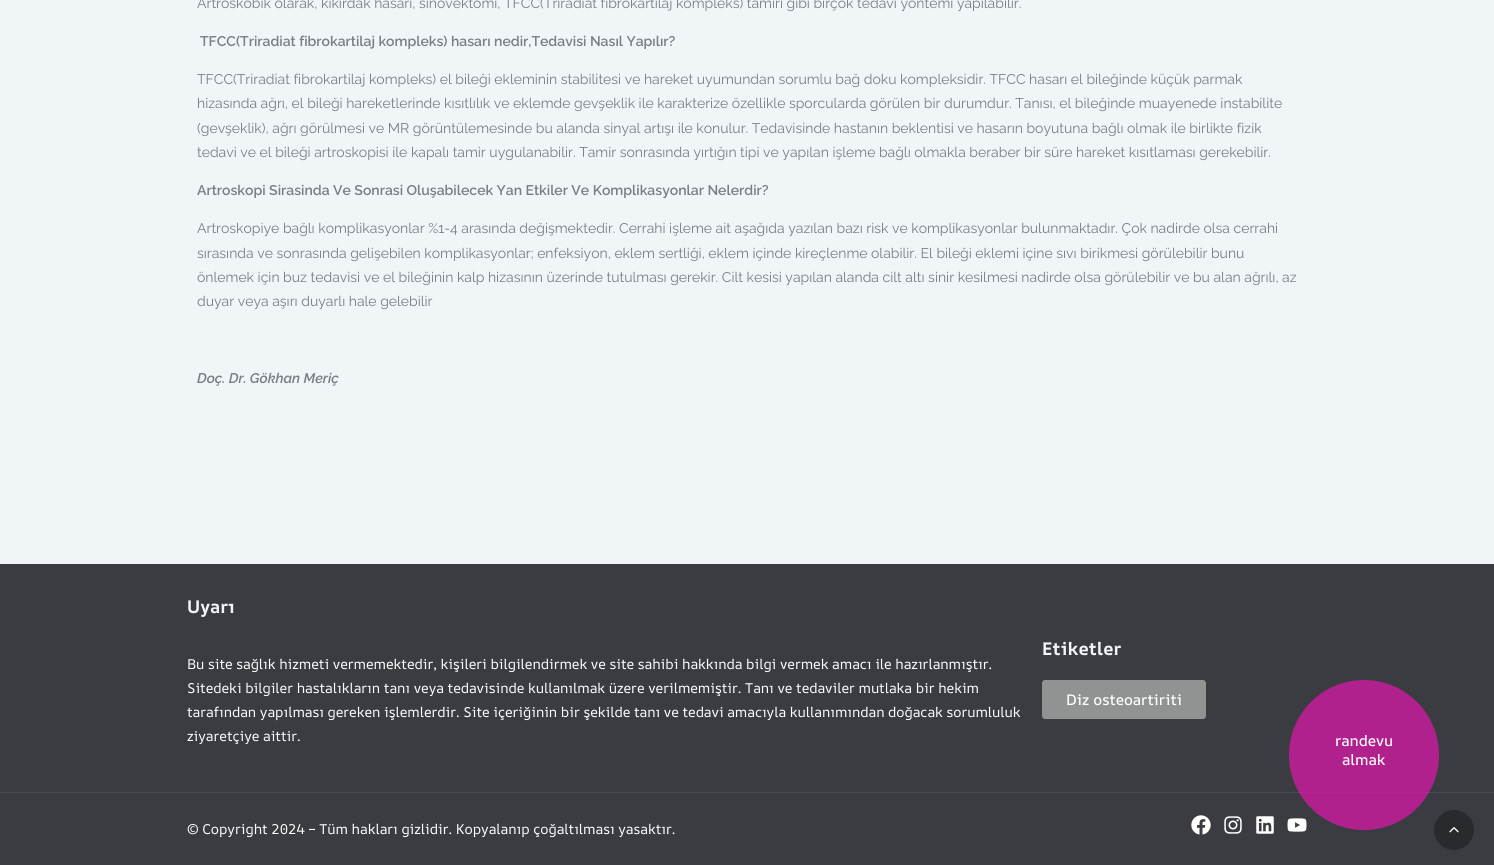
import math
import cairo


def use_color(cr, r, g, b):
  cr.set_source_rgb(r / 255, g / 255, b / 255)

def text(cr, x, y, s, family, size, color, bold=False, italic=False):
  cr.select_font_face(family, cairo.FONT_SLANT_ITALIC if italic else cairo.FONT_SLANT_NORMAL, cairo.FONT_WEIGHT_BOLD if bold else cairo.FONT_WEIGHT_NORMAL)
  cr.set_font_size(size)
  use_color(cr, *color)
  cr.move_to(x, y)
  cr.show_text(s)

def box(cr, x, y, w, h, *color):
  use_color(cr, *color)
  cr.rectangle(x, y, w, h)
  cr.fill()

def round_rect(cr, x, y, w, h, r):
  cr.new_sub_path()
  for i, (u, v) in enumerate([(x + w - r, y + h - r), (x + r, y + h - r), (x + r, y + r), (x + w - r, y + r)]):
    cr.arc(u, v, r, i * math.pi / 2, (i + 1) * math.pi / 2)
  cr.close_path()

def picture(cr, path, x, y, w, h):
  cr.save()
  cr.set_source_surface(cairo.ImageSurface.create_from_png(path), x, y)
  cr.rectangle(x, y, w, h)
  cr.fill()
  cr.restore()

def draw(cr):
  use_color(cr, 240, 245, 247)
  cr.paint()
  box(cr, 0, 564, 1494, 228, 58, 60, 65)
  use_color(cr, 145, 146, 146)
  round_rect(cr, 1042, 680, 164, 39, 3)
  cr.fill()
  box(cr, 0, 793, 1494, 72, 58, 60, 65)
  box(cr, 0, 792, 1494, 1, 74, 76, 82)
  picture(cr, "img_04.png", 1287, 818, 20, 14)
  cr.set_source_rgba(0.878, 0.09, 0.678, 0.72)
  cr.arc(1364, 755, 75, 0, 2 * math.pi)
  cr.fill()
  picture(cr, "img_01.png", 1191, 815, 20, 20)
  picture(cr, "img_02.png", 1224, 816, 18, 18)
  picture(cr, "img_03.png", 1256, 816, 18, 18)
  use_color(cr, 41, 42, 46)
  cr.arc(1454, 830, 20, 0, 2 * math.pi)
  cr.fill()
  picture(cr, "img_05.png", 1449, 827, 10, 6)
  text(cr, 197, 8, "Artroskobik olarak, kıkırdak hasarı, sinovektomi, TFCC(Triradiat fibrokartilaj kompleks) tamiri gibi birçok tedavi yöntemi yapılabilir.", "Raleway", 14, (123, 125, 133))
  text(cr, 200, 46, "TFCC(Triradiat fibrokartilaj kompleks) hasarı nedir,Tedavisi Nasıl Yapılır?", "Raleway SemiBold", 14, (123, 125, 133))
  text(cr, 197, 84, "TFCC(Triradiat fibrokartilaj kompleks) el bileği ekleminin stabilitesi ve hareket uyumundan sorumlu bağ doku kompleksidir. TFCC hasarı el bileğinde küçük parmak", "Raleway", 14, (123, 125, 133))
  text(cr, 197, 108, "hizasında ağrı, el bileği hareketlerinde kısıtlılık ve eklemde gevşeklik ile karakterize özellikle sporcularda görülen bir durumdur. Tanısı, el bileğinde muayenede instabilite", "Raleway", 14, (123, 125, 133))
  text(cr, 197, 133, "(gevşeklik), ağrı görülmesi ve MR görüntülemesinde bu alanda sinyal artışı ile konulur. Tedavisinde hastanın beklentisi ve hasarın boyutuna bağlı olmak ile birlikte fizik", "Raleway", 14, (123, 125, 133))
  text(cr, 197, 157, "tedavi ve el bileği artroskopisi ile kapalı tamir uygulanabilir. Tamir sonrasında yırtığın tipi ve yapılan işleme bağlı olmakla beraber bir süre hareket kısıtlaması gerekebilir.", "Raleway", 14, (123, 125, 133))
  text(cr, 197, 195, "Artroskopi Sirasinda Ve Sonrasi Oluşabilecek Yan Etkiler Ve Komplikasyonlar Nelerdir?", "Raleway SemiBold", 14, (123, 125, 133))
  text(cr, 197, 233, "Artroskopiye bağlı komplikasyonlar %1-4 arasında değişmektedir. Cerrahi işleme ait aşağıda yazılan bazı risk ve komplikasyonlar bulunmaktadır. Çok nadirde olsa cerrahi", "Raleway", 14, (123, 125, 133))
  text(cr, 197, 258, "sırasında ve sonrasında gelişebilen komplikasyonlar; enfeksiyon, eklem sertliği, eklem içinde kireçlenme olabilir. El bileği eklemi içine sıvı birikmesi görülebilir bunu", "Raleway", 14, (123, 125, 133))
  text(cr, 197, 282, "önlemek için buz tedavisi ve el bileğinin kalp hizasının üzerinde tutulması gerekir. Cilt kesisi yapılan alanda cilt altı sinir kesilmesi nadirde olsa görülebilir ve bu alan ağrılı, az", "Raleway", 14, (123, 125, 133))
  text(cr, 197, 306, "duyar veya aşırı duyarlı hale gelebilir", "Raleway", 14, (123, 125, 133))
  text(cr, 197, 383, "Doç. Dr. Gökhan Meriç", "Raleway SemiBold", 14, (123, 125, 133), italic=True)
  text(cr, 187, 613, "Uyarı", "AR One Sans", 18, (240, 245, 247), bold=True)
  text(cr, 187, 669, "Bu site sağlık hizmeti vermemektedir, kişileri bilgilendirmek ve site sahibi hakkında bilgi vermek amacı ile hazırlanmıştır.", "AR One Sans", 14, (255, 255, 255))
  text(cr, 187, 693, "Sitedeki bilgiler hastalıkların tanı veya tedavisinde kullanılmak üzere verilmemiştir. Tanı ve tedaviler mutlaka bir hekim", "AR One Sans", 14, (255, 255, 255))
  text(cr, 187, 717, "tarafından yapılması gereken işlemlerdir. Site içeriğinin bir şekilde tanı ve tedavi amacıyla kullanımından doğacak sorumluluk", "AR One Sans", 14, (255, 255, 255))
  text(cr, 187, 741, "ziyaretçiye aittir.", "AR One Sans", 14, (255, 255, 255))
  text(cr, 1042, 655, "Etiketler", "AR One Sans", 18, (240, 245, 247), bold=True)
  text(cr, 1066, 705, "Diz osteoartiriti", "AR One Sans Medium", 15, (255, 255, 255))
  text(cr, 1335, 746, "randevu", "AR One Sans Medium", 15, (255, 255, 255))
  text(cr, 1342, 765, "almak", "AR One Sans Medium", 15, (255, 255, 255))
  text(cr, 187, 834, "© Copyright 2024 – Tüm hakları gizlidir. Kopyalanıp çoğaltılması yasaktır.", "AR One Sans", 14, (255, 255, 255))


surface = cairo.ImageSurface(cairo.FORMAT_RGB24, 1494, 865)
cr = cairo.Context(surface)
options = cairo.FontOptions()
options.set_hint_metrics(cairo.HINT_METRICS_OFF)
options.set_hint_style(cairo.HINT_STYLE_NONE)
cr.set_font_options(options)
cr.set_miter_limit(4)
draw(cr)
surface.write_to_png("out.png")
